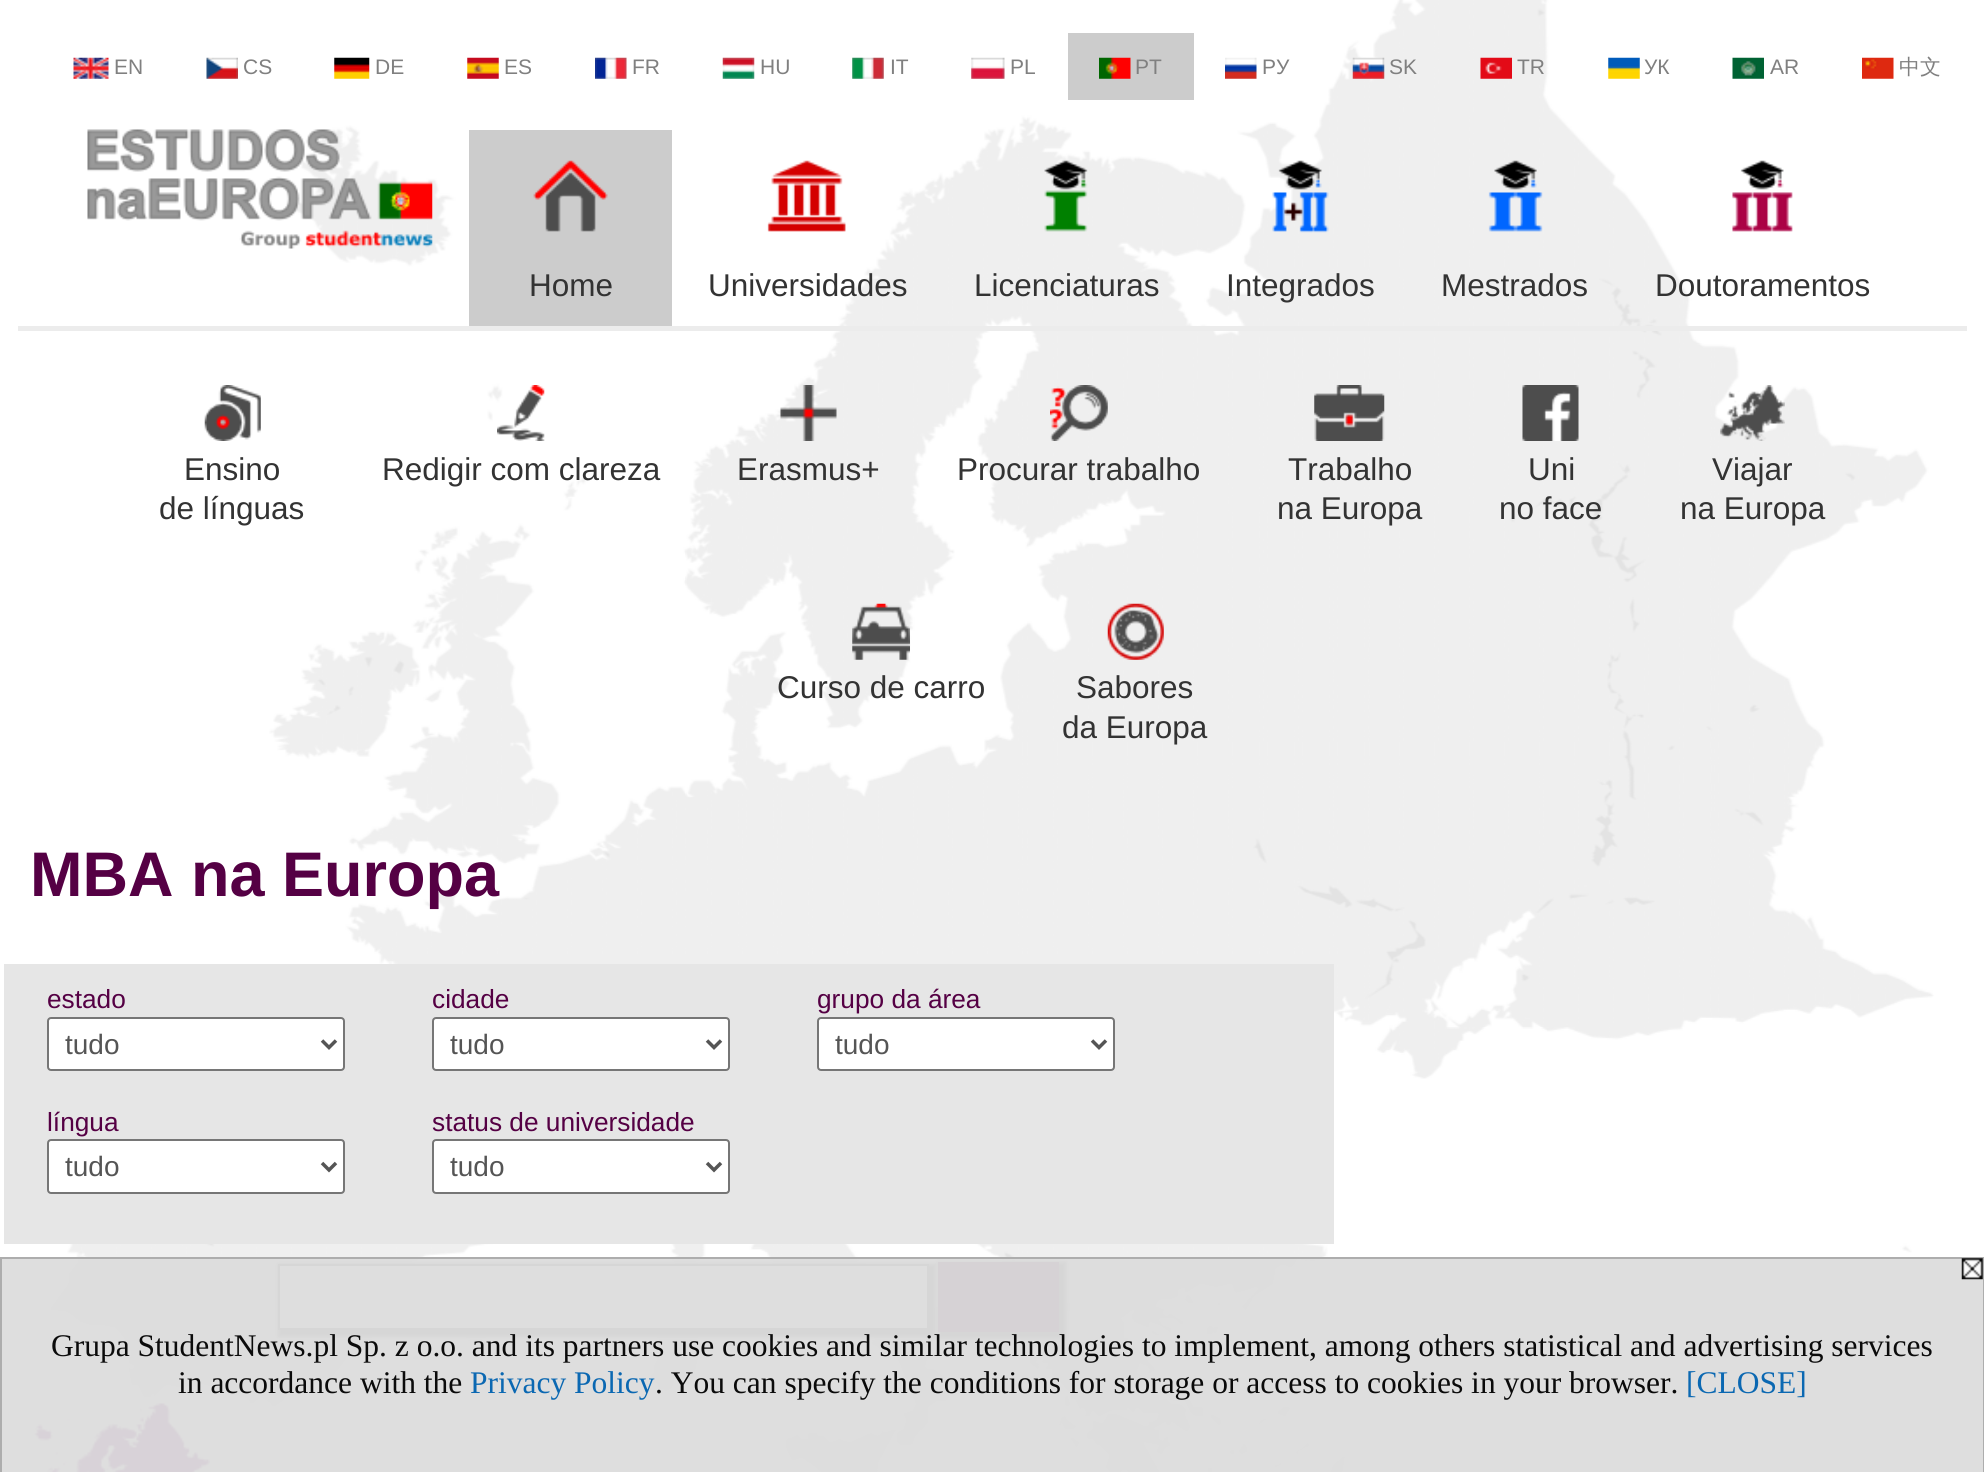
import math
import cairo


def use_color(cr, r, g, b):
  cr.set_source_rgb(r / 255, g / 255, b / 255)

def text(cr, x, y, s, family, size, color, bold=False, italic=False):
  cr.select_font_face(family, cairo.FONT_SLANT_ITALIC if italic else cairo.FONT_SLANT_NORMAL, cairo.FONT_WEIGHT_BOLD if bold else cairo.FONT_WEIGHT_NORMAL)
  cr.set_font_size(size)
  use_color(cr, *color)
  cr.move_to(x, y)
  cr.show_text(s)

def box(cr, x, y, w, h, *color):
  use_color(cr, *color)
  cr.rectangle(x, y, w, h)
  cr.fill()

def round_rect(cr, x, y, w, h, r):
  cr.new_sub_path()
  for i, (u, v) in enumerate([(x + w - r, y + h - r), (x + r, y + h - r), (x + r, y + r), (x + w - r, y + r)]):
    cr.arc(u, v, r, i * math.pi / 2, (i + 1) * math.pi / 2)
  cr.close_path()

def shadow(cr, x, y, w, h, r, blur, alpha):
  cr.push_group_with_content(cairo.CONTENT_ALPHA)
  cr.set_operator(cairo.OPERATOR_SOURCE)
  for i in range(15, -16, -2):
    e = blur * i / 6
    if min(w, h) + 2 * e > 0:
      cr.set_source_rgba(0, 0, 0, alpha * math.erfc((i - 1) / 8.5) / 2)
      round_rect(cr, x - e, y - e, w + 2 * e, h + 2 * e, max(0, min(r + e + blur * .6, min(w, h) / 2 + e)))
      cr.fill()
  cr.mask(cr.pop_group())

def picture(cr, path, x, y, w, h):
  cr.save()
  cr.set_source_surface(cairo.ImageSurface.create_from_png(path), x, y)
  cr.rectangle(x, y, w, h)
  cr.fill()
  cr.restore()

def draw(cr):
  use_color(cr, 255, 255, 255)
  cr.paint()
  picture(cr, "img_01.png", 49, 0, 1885, 1472)
  picture(cr, "img_02.png", 73, 57, 36, 22)
  picture(cr, "img_03.png", 206, 57, 32, 22)
  picture(cr, "img_04.png", 334, 57, 36, 22)
  picture(cr, "img_05.png", 467, 57, 32, 22)
  picture(cr, "img_06.png", 595, 57, 32, 22)
  picture(cr, "img_07.png", 722, 57, 33, 22)
  picture(cr, "img_08.png", 852, 57, 32, 22)
  picture(cr, "img_09.png", 971, 57, 34, 22)
  box(cr, 1068, 33, 126, 67, 204, 204, 204)
  picture(cr, "img_10.png", 1099, 57, 32, 22)
  picture(cr, "img_11.png", 1225, 57, 32, 22)
  picture(cr, "img_12.png", 1352, 57, 33, 22)
  picture(cr, "img_13.png", 1480, 57, 32, 22)
  picture(cr, "img_14.png", 1608, 57, 32, 22)
  picture(cr, "img_15.png", 1732, 57, 32, 22)
  picture(cr, "img_16.png", 1862, 57, 32, 22)
  picture(cr, "img_17.png", 87, 129, 346, 120)
  box(cr, 469, 130, 203, 196, 204, 204, 204)
  picture(cr, "img_18.png", 533, 160, 75, 72)
  picture(cr, "img_19.png", 767, 160, 79, 72)
  picture(cr, "img_20.png", 1044, 160, 44, 72)
  picture(cr, "img_21.png", 1272, 160, 57, 73)
  picture(cr, "img_22.png", 1488, 160, 55, 72)
  picture(cr, "img_23.png", 1732, 160, 61, 72)
  box(cr, 18, 326, 1949, 5, 236, 236, 236)
  picture(cr, "img_24.png", 204, 385, 57, 56)
  picture(cr, "img_25.png", 497, 385, 48, 56)
  picture(cr, "img_26.png", 780, 385, 57, 56)
  picture(cr, "img_27.png", 1050, 385, 58, 56)
  picture(cr, "img_28.png", 1314, 385, 71, 56)
  picture(cr, "img_29.png", 1522, 385, 57, 56)
  picture(cr, "img_30.png", 1720, 385, 65, 56)
  picture(cr, "img_31.png", 852, 603, 58, 57)
  picture(cr, "img_32.png", 1107, 603, 57, 57)
  box(cr, 4, 964, 1330, 280, 230, 230, 230)
  use_color(cr, 255, 255, 255)
  round_rect(cr, 48, 1018, 296, 52, 3)
  cr.fill_preserve()
  use_color(cr, 118, 118, 118)
  cr.stroke()
  cr.new_path()
  cr.move_to(322, 1040.5)
  cr.line_to(329, 1047.5)
  cr.line_to(336, 1040.5)
  use_color(cr, 85, 85, 85)
  cr.set_line_width(3.5)
  cr.stroke()
  use_color(cr, 255, 255, 255)
  round_rect(cr, 433, 1018, 296, 52, 3)
  cr.fill_preserve()
  use_color(cr, 118, 118, 118)
  cr.set_line_width(2)
  cr.stroke()
  cr.new_path()
  cr.move_to(707, 1040.5)
  cr.line_to(714, 1047.5)
  cr.line_to(721, 1040.5)
  use_color(cr, 85, 85, 85)
  cr.set_line_width(3.5)
  cr.stroke()
  use_color(cr, 255, 255, 255)
  round_rect(cr, 818, 1018, 296, 52, 3)
  cr.fill_preserve()
  use_color(cr, 118, 118, 118)
  cr.set_line_width(2)
  cr.stroke()
  cr.new_path()
  cr.move_to(1092, 1040.5)
  cr.line_to(1099, 1047.5)
  cr.line_to(1106, 1040.5)
  use_color(cr, 85, 85, 85)
  cr.set_line_width(3.5)
  cr.stroke()
  use_color(cr, 255, 255, 255)
  round_rect(cr, 48, 1140, 296, 53, 3)
  cr.fill_preserve()
  use_color(cr, 118, 118, 118)
  cr.set_line_width(2)
  cr.stroke()
  cr.new_path()
  cr.move_to(322, 1163)
  cr.line_to(329, 1170)
  cr.line_to(336, 1163)
  use_color(cr, 85, 85, 85)
  cr.set_line_width(3.5)
  cr.stroke()
  use_color(cr, 255, 255, 255)
  round_rect(cr, 433, 1140, 296, 53, 3)
  cr.fill_preserve()
  use_color(cr, 118, 118, 118)
  cr.set_line_width(2)
  cr.stroke()
  cr.new_path()
  cr.move_to(707, 1163)
  cr.line_to(714, 1170)
  cr.line_to(721, 1163)
  use_color(cr, 85, 85, 85)
  cr.set_line_width(3.5)
  cr.stroke()
  use_color(cr, 85, 85, 85)
  shadow(cr, 278, 1264, 658, 73, 0, 2, 1)
  use_color(cr, 255, 255, 255)
  cr.rectangle(279, 1265, 649, 64)
  cr.fill_preserve()
  use_color(cr, 85, 85, 85)
  cr.set_line_width(2)
  cr.stroke()
  use_color(cr, 85, 85, 85)
  shadow(cr, 938, 1262, 128, 77, 0, 2, 1)
  box(cr, 938, 1262, 121, 70, 85, 0, 68)
  picture(cr, "img_33.png", 34, 1403, 176, 69)
  cr.set_source_rgba(0.867, 0.867, 0.867, 0.95)
  cr.rectangle(1, 1258, 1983, 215)
  cr.fill_preserve()
  use_color(cr, 173, 173, 173)
  cr.stroke()
  picture(cr, "img_34.png", 1961, 1258, 22, 22)
  text(cr, 114, 74, "EN", "Liberation Sans", 21, (128, 128, 128))
  text(cr, 243, 74, "CS", "Liberation Sans", 21, (128, 128, 128))
  text(cr, 375, 74, "DE", "Liberation Sans", 21, (128, 128, 128))
  text(cr, 504, 74, "ES", "Liberation Sans", 21, (128, 128, 128))
  text(cr, 632, 74, "FR", "Liberation Sans", 21, (128, 128, 128))
  text(cr, 760, 74, "HU", "Liberation Sans", 21, (128, 128, 128))
  text(cr, 890, 74, "IT", "Liberation Sans", 21, (128, 128, 128))
  text(cr, 1010, 74, "PL", "Liberation Sans", 21, (128, 128, 128))
  text(cr, 1135, 74, "PT", "Liberation Sans", 21, (128, 128, 128))
  text(cr, 1262, 74, "РУ", "Liberation Sans", 21, (128, 128, 128))
  text(cr, 1389, 74, "SK", "Liberation Sans", 21, (128, 128, 128))
  text(cr, 1517, 74, "TR", "Liberation Sans", 21, (128, 128, 128))
  text(cr, 1644, 74, "УК", "Liberation Sans", 21, (128, 128, 128))
  text(cr, 1770, 74, "AR", "Liberation Sans", 21, (128, 128, 128))
  text(cr, 1899, 74, "中文", "WenQuanYi Zen Hei Medium", 21, (128, 128, 128))
  text(cr, 529, 296, "Home", "Liberation Sans", 31.5, (51, 51, 51))
  text(cr, 708, 296, "Universidades", "Liberation Sans", 31.5, (51, 51, 51))
  text(cr, 974, 296, "Licenciaturas", "Liberation Sans", 31.5, (51, 51, 51))
  text(cr, 1226, 296, "Integrados", "Liberation Sans", 31.5, (51, 51, 51))
  text(cr, 1441, 296, "Mestrados", "Liberation Sans", 31.5, (51, 51, 51))
  text(cr, 1655, 296, "Doutoramentos", "Liberation Sans", 31.5, (51, 51, 51))
  text(cr, 184, 480, "Ensino", "Liberation Sans", 31.5, (51, 51, 51))
  text(cr, 159, 519, "de línguas", "Liberation Sans", 31.5, (51, 51, 51))
  text(cr, 382, 480, "Redigir com clareza", "Liberation Sans", 31.5, (51, 51, 51))
  text(cr, 737, 480, "Erasmus+", "Liberation Sans", 31.5, (51, 51, 51))
  text(cr, 957, 480, "Procurar trabalho", "Liberation Sans", 31.5, (51, 51, 51))
  text(cr, 1288, 480, "Trabalho", "Liberation Sans", 31.5, (51, 51, 51))
  text(cr, 1277, 519, "na Europa", "Liberation Sans", 31.5, (51, 51, 51))
  text(cr, 1528, 480, "Uni", "Liberation Sans", 31.5, (51, 51, 51))
  text(cr, 1499, 519, "no face", "Liberation Sans", 31.5, (51, 51, 51))
  text(cr, 1712, 480, "Viajar", "Liberation Sans", 31.5, (51, 51, 51))
  text(cr, 1680, 519, "na Europa", "Liberation Sans", 31.5, (51, 51, 51))
  text(cr, 777, 698, "Curso de carro", "Liberation Sans", 31.5, (51, 51, 51))
  text(cr, 1076, 698, "Sabores", "Liberation Sans", 31.5, (51, 51, 51))
  text(cr, 1062, 738, "da Europa", "Liberation Sans", 31.5, (51, 51, 51))
  text(cr, 30, 896, "MBA na Europa", "Liberation Sans", 63, (85, 0, 68), bold=True)
  text(cr, 47, 1008, "estado", "Liberation Sans", 26.25, (85, 0, 68))
  text(cr, 65, 1054, "tudo", "Liberation Sans", 28, (85, 85, 85))
  text(cr, 432, 1008, "cidade", "Liberation Sans", 26.25, (85, 0, 68))
  text(cr, 450, 1054, "tudo", "Liberation Sans", 28, (85, 85, 85))
  text(cr, 817, 1008, "grupo da área", "Liberation Sans", 26.25, (85, 0, 68))
  text(cr, 835, 1054, "tudo", "Liberation Sans", 28, (85, 85, 85))
  text(cr, 47, 1131, "língua", "Liberation Sans", 26.25, (85, 0, 68))
  text(cr, 65, 1176, "tudo", "Liberation Sans", 28, (85, 85, 85))
  text(cr, 432, 1131, "status de universidade", "Liberation Sans", 26.25, (85, 0, 68))
  text(cr, 450, 1176, "tudo", "Liberation Sans", 28, (85, 85, 85))
  text(cr, 51, 1356, "Grupa StudentNews.pl Sp. z o.o. and its partners use cookies and similar technologies to implement, among others statistical and advertising services", "Liberation Serif", 31.5, (11, 11, 11))
  text(cr, 178, 1393, "in accordance with the", "Liberation Serif", 31.5, (11, 11, 11))
  text(cr, 470, 1393, "Privacy Policy", "Liberation Serif", 31.5, (11, 104, 178))
  text(cr, 655, 1393, ". You can specify the conditions for storage or access to cookies in your browser.", "Liberation Serif", 31.5, (11, 11, 11))
  text(cr, 1686, 1393, "[CLOSE]", "Liberation Serif", 31.5, (11, 104, 178))


surface = cairo.ImageSurface(cairo.FORMAT_RGB24, 1984, 1472)
cr = cairo.Context(surface)
options = cairo.FontOptions()
options.set_hint_metrics(cairo.HINT_METRICS_OFF)
options.set_hint_style(cairo.HINT_STYLE_NONE)
cr.set_font_options(options)
cr.set_miter_limit(4)
draw(cr)
surface.write_to_png("out.png")
